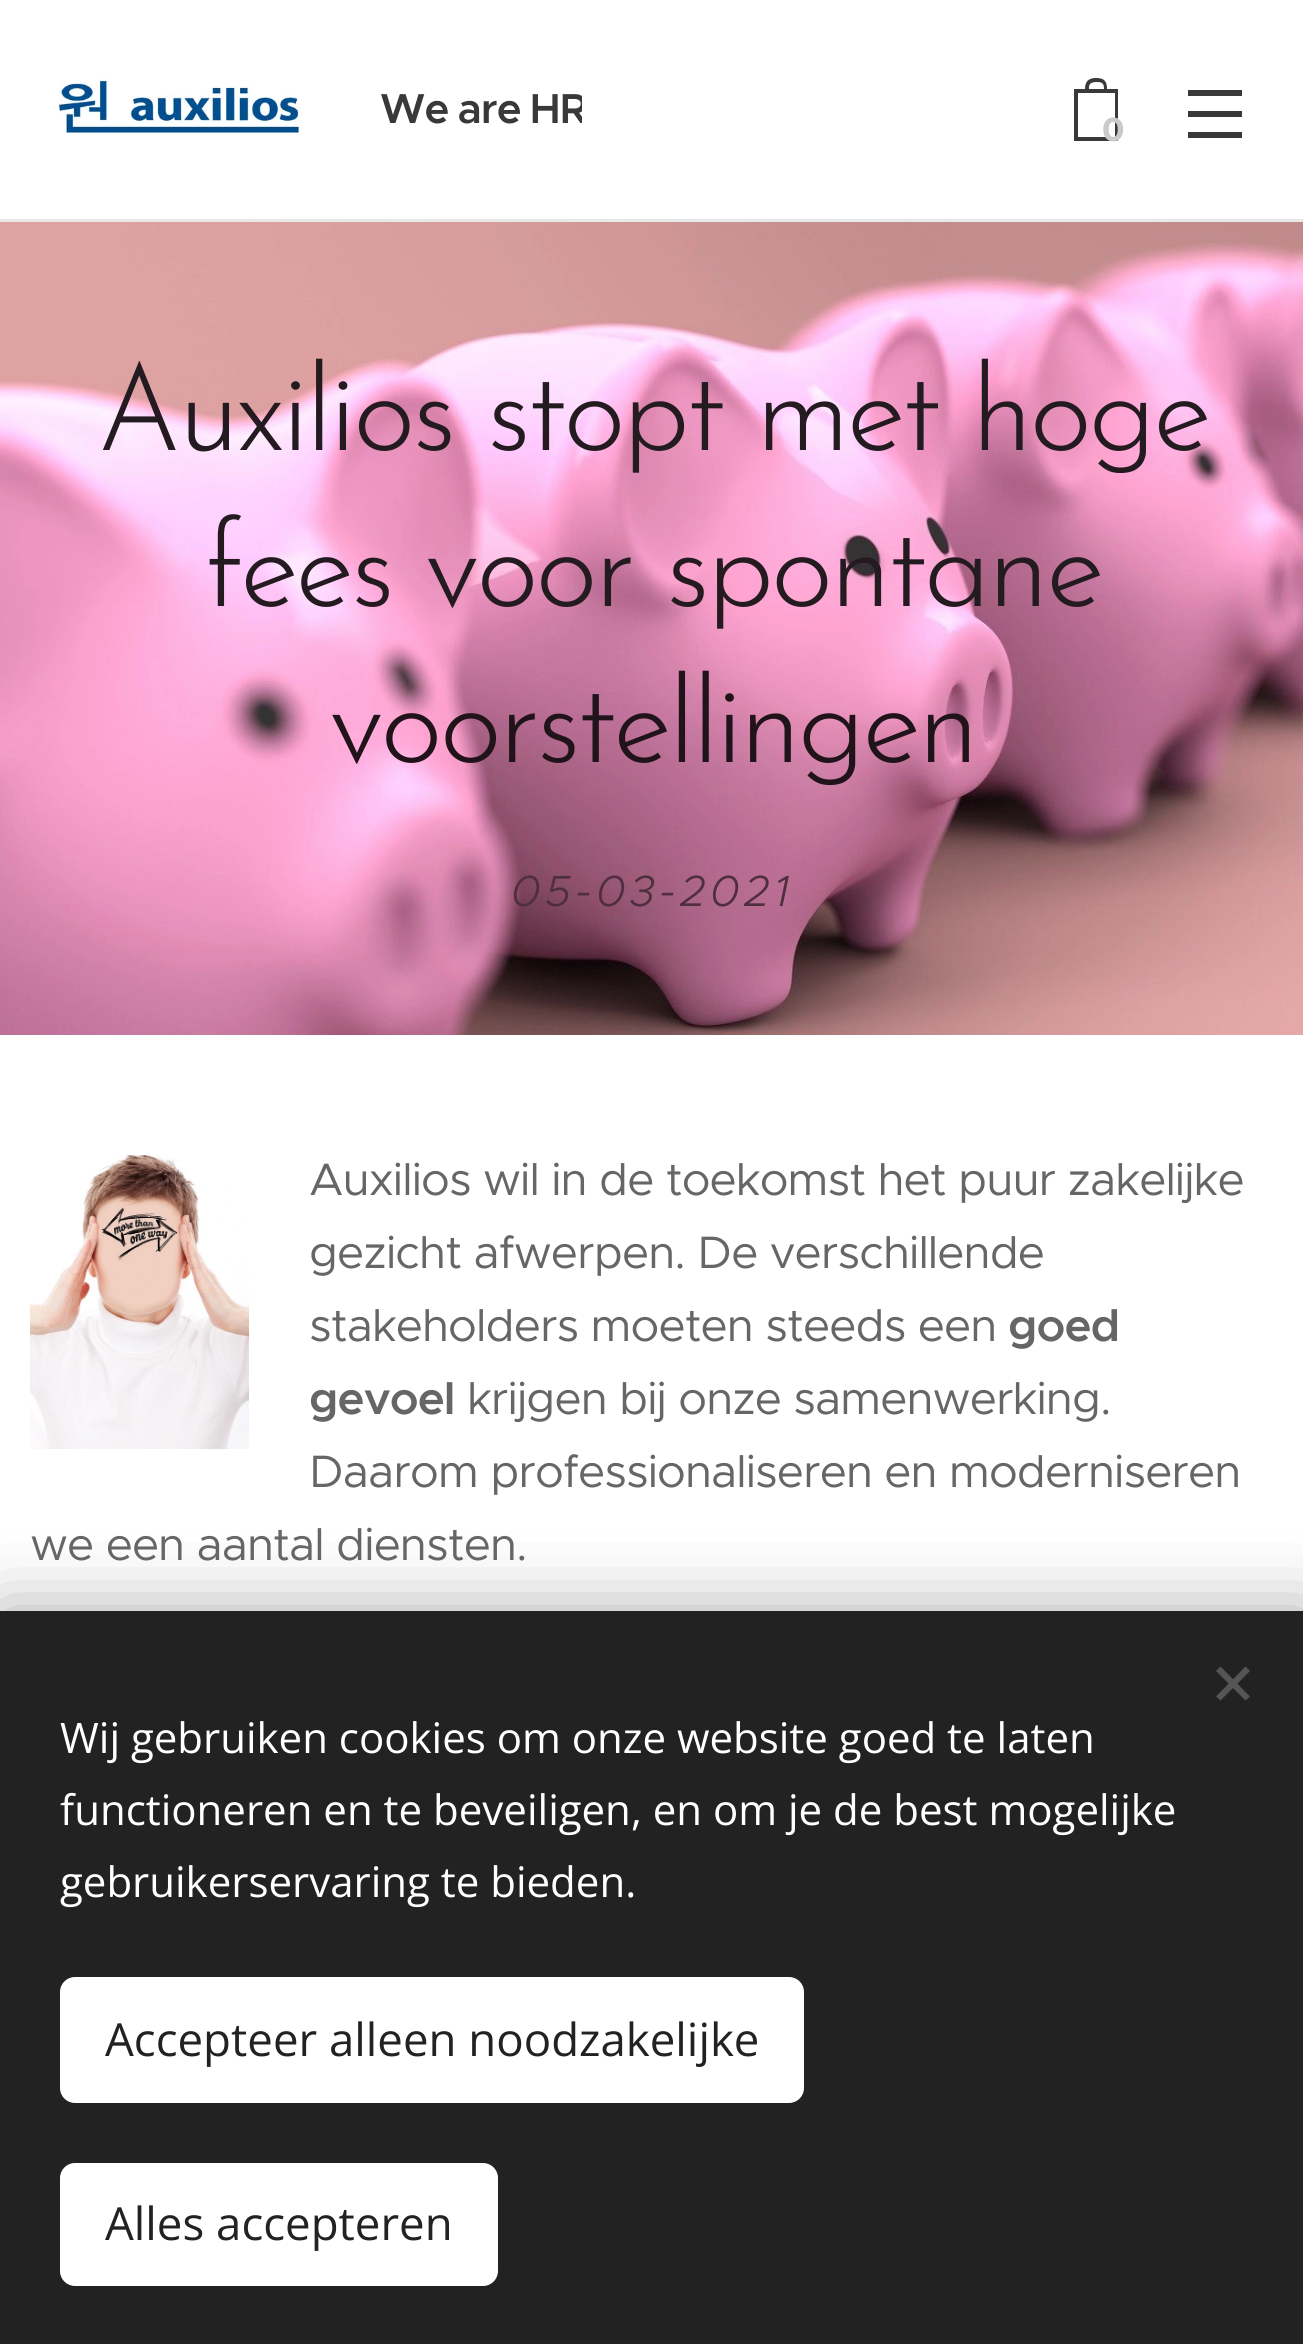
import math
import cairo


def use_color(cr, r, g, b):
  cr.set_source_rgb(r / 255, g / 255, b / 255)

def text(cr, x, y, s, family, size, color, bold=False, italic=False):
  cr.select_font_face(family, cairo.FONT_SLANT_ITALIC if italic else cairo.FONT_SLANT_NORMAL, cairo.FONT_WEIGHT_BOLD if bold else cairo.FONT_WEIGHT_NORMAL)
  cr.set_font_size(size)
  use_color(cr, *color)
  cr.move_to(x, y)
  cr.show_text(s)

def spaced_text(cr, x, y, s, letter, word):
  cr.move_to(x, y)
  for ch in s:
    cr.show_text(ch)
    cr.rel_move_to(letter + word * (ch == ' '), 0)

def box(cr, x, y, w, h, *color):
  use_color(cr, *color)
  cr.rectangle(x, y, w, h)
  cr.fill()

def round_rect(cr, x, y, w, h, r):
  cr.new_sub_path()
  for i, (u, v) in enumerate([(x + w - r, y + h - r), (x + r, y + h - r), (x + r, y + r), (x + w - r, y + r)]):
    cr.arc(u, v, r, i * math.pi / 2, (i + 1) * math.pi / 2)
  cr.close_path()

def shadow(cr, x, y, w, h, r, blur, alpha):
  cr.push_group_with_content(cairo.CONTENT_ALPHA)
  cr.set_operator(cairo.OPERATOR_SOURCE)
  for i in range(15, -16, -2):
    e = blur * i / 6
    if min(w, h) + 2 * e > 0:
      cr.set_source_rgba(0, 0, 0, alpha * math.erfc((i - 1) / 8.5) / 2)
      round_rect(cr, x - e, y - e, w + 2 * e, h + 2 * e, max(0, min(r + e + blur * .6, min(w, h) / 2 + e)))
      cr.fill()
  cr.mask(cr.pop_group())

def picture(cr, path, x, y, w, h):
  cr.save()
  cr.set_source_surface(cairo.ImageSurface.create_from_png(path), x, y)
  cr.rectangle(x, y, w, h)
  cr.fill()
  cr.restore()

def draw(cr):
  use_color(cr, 255, 255, 255)
  cr.paint()
  picture(cr, "img_01.png", 58, 77, 242, 56)
  use_color(cr, 57, 57, 57)
  cr.new_path()
  cr.move_to(1107, 89)
  cr.curve_to(1107, 81, 1104, 78, 1096, 78)
  cr.curve_to(1089, 78, 1085, 81, 1085, 89)
  cr.line_to(1074, 89)
  cr.line_to(1074, 141)
  cr.line_to(1118, 141)
  cr.line_to(1118, 89)
  cr.close_path()
  cr.move_to(1089, 87)
  cr.curve_to(1089, 83, 1093, 82, 1096, 82)
  cr.curve_to(1102, 82, 1104, 83, 1104, 89)
  cr.line_to(1089, 89)
  cr.close_path()
  cr.move_to(1115, 137)
  cr.line_to(1078, 137)
  cr.line_to(1078, 93)
  cr.line_to(1115, 93)
  cr.close_path()
  cr.fill()
  box(cr, 1188, 111, 54, 6, 57, 57, 57)
  box(cr, 1188, 90, 54, 6, 57, 57, 57)
  box(cr, 1188, 132, 54, 6, 57, 57, 57)
  box(cr, 0, 219, 1303, 3, 232, 232, 232)
  picture(cr, "img_02.png", 0, 222, 1303, 813)
  picture(cr, "img_03.png", 30, 1155, 219, 294)
  use_color(cr, 0, 0, 0)
  shadow(cr, 0, 1611, 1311, 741, 0, 37.5, 0.33)
  box(cr, 0, 1611, 1303, 733, 34, 34, 34)
  use_color(cr, 85, 85, 85)
  cr.new_path()
  cr.move_to(1216, 1696.5)
  cr.line_to(1245.5, 1666.5)
  cr.line_to(1250, 1671)
  cr.line_to(1220.5, 1700.5)
  cr.close_path()
  cr.fill()
  cr.new_path()
  cr.move_to(1220.5, 1666.5)
  cr.line_to(1250, 1696.5)
  cr.line_to(1245.5, 1700.5)
  cr.line_to(1216, 1671)
  cr.close_path()
  cr.fill()
  use_color(cr, 255, 255, 255)
  round_rect(cr, 60, 1977, 744, 126, 15)
  cr.fill()
  round_rect(cr, 60, 2163, 438, 123, 15)
  cr.fill()
  cr.save()
  cr.rectangle(369, 78, 213, 66)
  cr.clip()
  cr.select_font_face("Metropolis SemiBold")
  cr.set_font_size(42)
  use_color(cr, 57, 57, 57)
  spaced_text(cr, 380, 123, "We are HR", -0.9, -2)
  cr.restore()
  text(cr, 1102, 141, "0", "Montserrat", 33, (202, 202, 202), bold=True)
  cr.select_font_face("Josefin Sans Light")
  cr.set_font_size(120)
  use_color(cr, 36, 27, 32)
  spaced_text(cr, 97, 450, "Auxilios stopt met hoge", -3.6, 0)
  spaced_text(cr, 204, 606, "fees voor spontane", -3.6, 0)
  use_color(cr, 32, 20, 26)
  spaced_text(cr, 329, 762, "voorstellingen", -3.6, 0)
  cr.select_font_face("Metropolis Light", cairo.FONT_SLANT_ITALIC)
  cr.set_font_size(43.75)
  use_color(cr, 79, 46, 62)
  spaced_text(cr, 511, 906, "05-03-2021", 4.4, 0)
  cr.select_font_face("Metropolis")
  cr.set_font_size(45.6)
  use_color(cr, 102, 102, 102)
  spaced_text(cr, 309, 1195, "Auxilios wil in de toekomst het puur zakelijke", -0.9, 0)
  spaced_text(cr, 309, 1268, "gezicht afwerpen. De verschillende", -0.9, 0)
  spaced_text(cr, 309, 1341, "stakeholders moeten steeds een", -0.9, 0)
  cr.select_font_face("Metropolis SemiBold")
  spaced_text(cr, 1008, 1341, "goed", -0.9, 0)
  spaced_text(cr, 309, 1414, "gevoel", -0.9, 0)
  cr.select_font_face("Metropolis")
  spaced_text(cr, 467, 1414, "krijgen bij onze samenwerking.", -0.9, 0)
  spaced_text(cr, 309, 1487, "Daarom professionaliseren en moderniseren", -0.9, 0)
  spaced_text(cr, 30, 1560, "we een aantal diensten.", -0.9, 0)
  text(cr, 60, 1753, "Wij gebruiken cookies om onze website goed te laten", "Open Sans", 42, (255, 255, 255))
  text(cr, 60, 1825, "functioneren en te beveiligen, en om je de best mogelijke", "Open Sans", 42, (255, 255, 255))
  text(cr, 60, 1897, "gebruikerservaring te bieden.", "Open Sans", 42, (255, 255, 255))
  text(cr, 105, 2056, "Accepteer alleen noodzakelijke", "Open Sans", 45.6, (34, 34, 34))
  text(cr, 105, 2240, "Alles accepteren", "Open Sans", 45.6, (34, 34, 34))


surface = cairo.ImageSurface(cairo.FORMAT_RGB24, 1303, 2344)
cr = cairo.Context(surface)
options = cairo.FontOptions()
options.set_hint_metrics(cairo.HINT_METRICS_OFF)
options.set_hint_style(cairo.HINT_STYLE_NONE)
cr.set_font_options(options)
cr.set_miter_limit(4)
draw(cr)
surface.write_to_png("out.png")
